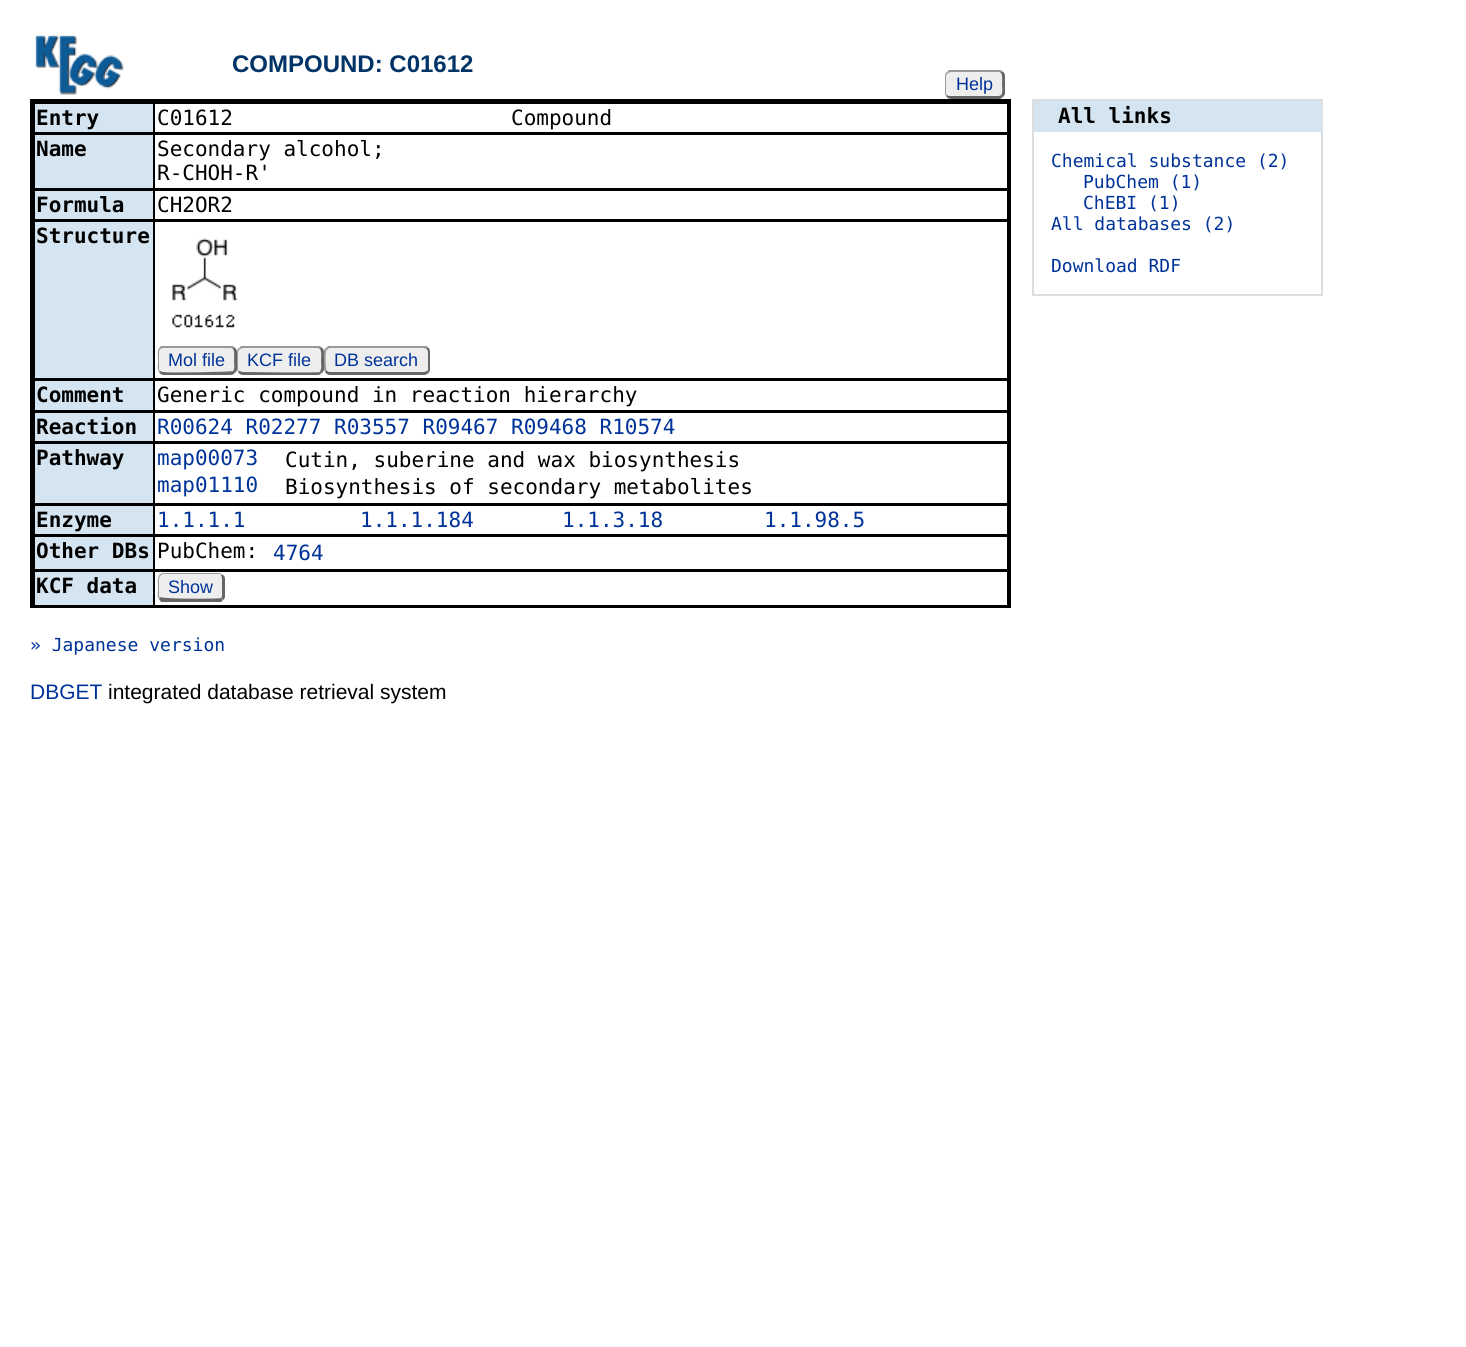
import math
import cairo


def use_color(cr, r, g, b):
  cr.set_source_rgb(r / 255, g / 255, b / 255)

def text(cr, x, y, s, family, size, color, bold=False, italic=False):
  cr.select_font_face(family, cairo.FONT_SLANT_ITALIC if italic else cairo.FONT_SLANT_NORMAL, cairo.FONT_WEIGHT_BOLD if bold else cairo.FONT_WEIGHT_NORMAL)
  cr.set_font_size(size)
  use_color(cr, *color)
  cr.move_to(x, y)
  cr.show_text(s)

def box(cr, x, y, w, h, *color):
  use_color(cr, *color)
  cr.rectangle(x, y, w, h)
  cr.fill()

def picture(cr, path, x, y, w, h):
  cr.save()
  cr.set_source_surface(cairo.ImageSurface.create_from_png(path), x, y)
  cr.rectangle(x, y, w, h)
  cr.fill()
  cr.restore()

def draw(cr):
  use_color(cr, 255, 255, 255)
  cr.paint()
  picture(cr, "img_01.png", 35, 35, 89, 60)
  use_color(cr, 238, 238, 238)
  cr.new_path()
  cr.move_to(951, 72)
  cr.line_to(999, 72)
  cr.curve_to(1001, 72, 1002, 74, 1002, 76)
  cr.line_to(1002, 93)
  cr.curve_to(1002, 95, 1001, 96, 999, 96)
  cr.line_to(951, 96)
  cr.curve_to(949, 96, 946, 95, 946, 93)
  cr.line_to(946, 76)
  cr.curve_to(946, 74, 949, 72, 951, 72)
  cr.close_path()
  cr.fill()
  use_color(cr, 153, 153, 153)
  cr.new_path()
  cr.move_to(951, 72)
  cr.line_to(948, 73)
  cr.line_to(947, 72)
  cr.line_to(949, 70)
  cr.line_to(1001, 70)
  cr.line_to(1003, 72)
  cr.line_to(1001, 73)
  cr.line_to(999, 72)
  cr.close_path()
  cr.fill()
  use_color(cr, 102, 102, 102)
  cr.new_path()
  cr.move_to(1005, 93)
  cr.line_to(1005, 76)
  cr.curve_to(1005, 74.5, 1004, 72.5, 1003, 71.5)
  cr.line_to(1000.5, 72.5)
  cr.curve_to(1003, 74.5, 1002, 82, 1002, 84.5)
  cr.curve_to(1002, 86.5, 1003, 93.5, 1001, 95)
  cr.line_to(1003, 97)
  cr.curve_to(1004, 96, 1005, 94.5, 1005, 93)
  cr.close_path()
  cr.fill()
  cr.new_path()
  cr.move_to(951, 99)
  cr.line_to(999, 99)
  cr.curve_to(1000, 99, 1002, 98, 1003, 97)
  cr.line_to(1001, 95)
  cr.line_to(999, 96)
  cr.line_to(951, 96)
  cr.curve_to(950, 96, 948, 96, 947, 95)
  cr.line_to(946, 96)
  cr.curve_to(947, 98, 949, 99, 951, 99)
  cr.close_path()
  cr.fill()
  use_color(cr, 153, 153, 153)
  cr.new_path()
  cr.move_to(945, 76)
  cr.line_to(945, 93)
  cr.curve_to(945, 94, 945.5, 95.5, 946.5, 96.5)
  cr.line_to(947, 95)
  cr.curve_to(946.5, 94.5, 946, 94, 946, 93)
  cr.line_to(946, 76)
  cr.curve_to(946, 75, 947, 74, 948, 73)
  cr.line_to(946.5, 72)
  cr.curve_to(945.5, 73, 945, 74.5, 945, 76)
  cr.close_path()
  cr.fill()
  box(cr, 30, 99, 981, 509, 0, 0, 0)
  box(cr, 35, 104, 118, 28, 212, 228, 240)
  box(cr, 155, 104, 852, 28, 255, 255, 255)
  box(cr, 35, 135, 118, 53, 212, 228, 240)
  box(cr, 155, 135, 852, 53, 255, 255, 255)
  box(cr, 35, 191, 118, 28, 212, 228, 240)
  box(cr, 155, 191, 852, 28, 255, 255, 255)
  box(cr, 35, 222, 118, 156, 212, 228, 240)
  box(cr, 155, 222, 852, 156, 255, 255, 255)
  picture(cr, "img_02.png", 172, 238, 66, 90)
  use_color(cr, 238, 238, 238)
  cr.new_path()
  cr.move_to(164, 348)
  cr.line_to(231, 348)
  cr.curve_to(233, 348, 234, 350, 234, 352)
  cr.line_to(234, 369)
  cr.curve_to(234, 371, 233, 372, 231, 372)
  cr.line_to(164, 372)
  cr.curve_to(161, 372, 159, 371, 159, 369)
  cr.line_to(159, 352)
  cr.curve_to(159, 350, 161, 348, 164, 348)
  cr.close_path()
  cr.fill()
  use_color(cr, 153, 153, 153)
  cr.new_path()
  cr.move_to(164, 348)
  cr.curve_to(162, 348, 161, 349, 160, 349)
  cr.line_to(159, 348)
  cr.line_to(161, 346)
  cr.line_to(233, 346)
  cr.line_to(235, 348)
  cr.line_to(233, 349)
  cr.line_to(231, 348)
  cr.close_path()
  cr.fill()
  use_color(cr, 102, 102, 102)
  cr.new_path()
  cr.move_to(237, 369)
  cr.line_to(237, 352)
  cr.curve_to(237, 350.5, 236, 348.5, 235, 347.5)
  cr.line_to(232.5, 348.5)
  cr.curve_to(235, 350.5, 234, 358, 234, 360.5)
  cr.curve_to(234, 362.5, 235, 369.5, 233, 371)
  cr.line_to(235, 373)
  cr.curve_to(236, 372, 237, 370.5, 237, 369)
  cr.close_path()
  cr.fill()
  cr.new_path()
  cr.move_to(164, 375)
  cr.line_to(231, 375)
  cr.curve_to(232, 375, 234, 374, 235, 373)
  cr.line_to(233, 371)
  cr.curve_to(232, 372, 168, 373, 163, 372)
  cr.line_to(160, 371)
  cr.line_to(159, 372)
  cr.curve_to(160, 374, 162, 375, 164, 375)
  cr.close_path()
  cr.fill()
  use_color(cr, 153, 153, 153)
  cr.new_path()
  cr.move_to(159, 372.5)
  cr.curve_to(157, 369.5, 158, 363.5, 158, 360.5)
  cr.curve_to(158, 357.5, 157, 351, 159, 348)
  cr.line_to(160.5, 349.5)
  cr.curve_to(159.5, 350, 159, 351, 159, 352)
  cr.line_to(159, 369)
  cr.curve_to(159, 369.5, 159, 370, 159.5, 370.5)
  cr.close_path()
  cr.fill()
  use_color(cr, 238, 238, 238)
  cr.new_path()
  cr.move_to(243, 348)
  cr.line_to(318, 348)
  cr.curve_to(320, 348, 321, 350, 321, 352)
  cr.line_to(321, 369)
  cr.curve_to(321, 371, 320, 372, 318, 372)
  cr.line_to(243, 372)
  cr.curve_to(241, 372, 238, 371, 238, 369)
  cr.line_to(238, 352)
  cr.curve_to(238, 350, 241, 348, 243, 348)
  cr.close_path()
  cr.fill()
  use_color(cr, 153, 153, 153)
  cr.new_path()
  cr.move_to(243, 348)
  cr.line_to(240, 349)
  cr.line_to(239, 348)
  cr.line_to(241, 346)
  cr.line_to(320, 346)
  cr.line_to(322, 348)
  cr.line_to(320, 349)
  cr.line_to(318, 348)
  cr.close_path()
  cr.fill()
  use_color(cr, 102, 102, 102)
  cr.new_path()
  cr.move_to(324, 369)
  cr.line_to(324, 352)
  cr.curve_to(324, 350.5, 323, 348.5, 322, 347.5)
  cr.line_to(319.5, 348.5)
  cr.curve_to(322, 350.5, 321, 358, 321, 360.5)
  cr.curve_to(321, 362.5, 322, 369.5, 320, 371)
  cr.line_to(322, 373)
  cr.curve_to(323, 372, 324, 370.5, 324, 369)
  cr.close_path()
  cr.fill()
  cr.new_path()
  cr.move_to(243, 375)
  cr.line_to(319, 375)
  cr.line_to(322, 373)
  cr.line_to(320, 371)
  cr.line_to(320, 372)
  cr.curve_to(318, 373, 249, 372, 243, 372)
  cr.line_to(239, 371)
  cr.line_to(238, 372)
  cr.curve_to(239, 374, 241, 375, 243, 375)
  cr.close_path()
  cr.fill()
  use_color(cr, 153, 153, 153)
  cr.new_path()
  cr.move_to(237, 352)
  cr.line_to(237, 369)
  cr.curve_to(237, 370, 237.5, 371.5, 238.5, 372.5)
  cr.line_to(239, 371)
  cr.curve_to(238.5, 370.5, 238, 370, 238, 369)
  cr.line_to(238, 352)
  cr.curve_to(238, 351, 239, 350, 240, 349)
  cr.line_to(238.5, 348)
  cr.curve_to(237.5, 349, 237, 350.5, 237, 352)
  cr.close_path()
  cr.fill()
  use_color(cr, 238, 238, 238)
  cr.new_path()
  cr.move_to(330, 348)
  cr.line_to(424, 348)
  cr.curve_to(426, 348, 428, 350, 428, 352)
  cr.line_to(428, 369)
  cr.curve_to(428, 371, 426, 372, 424, 372)
  cr.line_to(330, 372)
  cr.curve_to(328, 372, 326, 371, 326, 369)
  cr.line_to(326, 352)
  cr.curve_to(326, 350, 328, 348, 330, 348)
  cr.close_path()
  cr.fill()
  use_color(cr, 153, 153, 153)
  cr.new_path()
  cr.move_to(330, 348)
  cr.curve_to(329, 348, 328, 349, 327, 350)
  cr.line_to(326, 348)
  cr.line_to(328, 346)
  cr.line_to(427, 346)
  cr.line_to(428, 348)
  cr.line_to(426, 349)
  cr.line_to(424, 348)
  cr.close_path()
  cr.fill()
  use_color(cr, 102, 102, 102)
  cr.new_path()
  cr.move_to(428.5, 347.5)
  cr.curve_to(429.5, 349, 430, 350.5, 430, 352)
  cr.line_to(430, 369)
  cr.curve_to(430, 370.5, 429.5, 372, 428.5, 373)
  cr.line_to(427, 371)
  cr.curve_to(427.5, 371, 428, 370, 428, 369)
  cr.line_to(428, 352)
  cr.curve_to(428, 350.5, 427, 349.5, 426, 348.5)
  cr.close_path()
  cr.fill()
  cr.new_path()
  cr.move_to(330, 375)
  cr.line_to(425, 375)
  cr.line_to(429, 373)
  cr.line_to(427, 371)
  cr.line_to(424, 372)
  cr.line_to(330, 372)
  cr.curve_to(328, 372, 327, 371, 326, 370)
  cr.line_to(325, 372)
  cr.curve_to(326, 374, 328, 375, 330, 375)
  cr.close_path()
  cr.fill()
  use_color(cr, 153, 153, 153)
  cr.new_path()
  cr.move_to(324, 352)
  cr.line_to(324, 369)
  cr.curve_to(324, 370, 324.5, 371.5, 325.5, 372.5)
  cr.line_to(326.5, 370.5)
  cr.curve_to(325.5, 369, 325.5, 353, 326, 351.5)
  cr.line_to(327, 349.5)
  cr.line_to(325.5, 348)
  cr.curve_to(324.5, 349, 324, 350.5, 324, 352)
  cr.close_path()
  cr.fill()
  box(cr, 35, 381, 118, 29, 212, 228, 240)
  box(cr, 155, 381, 852, 29, 255, 255, 255)
  box(cr, 35, 413, 118, 28, 212, 228, 240)
  box(cr, 155, 413, 852, 28, 255, 255, 255)
  box(cr, 35, 444, 118, 59, 212, 228, 240)
  box(cr, 155, 444, 852, 59, 255, 255, 255)
  box(cr, 35, 506, 118, 28, 212, 228, 240)
  box(cr, 155, 506, 852, 28, 255, 255, 255)
  box(cr, 35, 537, 118, 32, 212, 228, 240)
  box(cr, 155, 537, 852, 32, 255, 255, 255)
  box(cr, 35, 572, 118, 33, 212, 228, 240)
  box(cr, 155, 572, 852, 33, 255, 255, 255)
  use_color(cr, 238, 238, 238)
  cr.new_path()
  cr.move_to(164, 574)
  cr.line_to(219, 574)
  cr.curve_to(221, 574, 222, 577, 222, 579)
  cr.line_to(222, 596)
  cr.curve_to(222, 597, 221, 598, 219, 598)
  cr.line_to(164, 598)
  cr.curve_to(161, 598, 159, 597, 159, 596)
  cr.line_to(159, 579)
  cr.curve_to(159, 577, 161, 574, 164, 574)
  cr.close_path()
  cr.fill()
  use_color(cr, 153, 153, 153)
  cr.new_path()
  cr.move_to(164, 573)
  cr.curve_to(162, 573, 160, 574, 159, 575)
  cr.line_to(160, 576)
  cr.curve_to(161, 575, 162, 574, 164, 574)
  cr.line_to(219, 574)
  cr.curve_to(220, 574, 220, 574, 221, 575)
  cr.line_to(222, 574)
  cr.line_to(219, 573)
  cr.close_path()
  cr.fill()
  use_color(cr, 102, 102, 102)
  cr.new_path()
  cr.move_to(225, 596)
  cr.line_to(225, 579)
  cr.curve_to(225, 577, 224, 575.5, 222.5, 574.5)
  cr.line_to(221, 575)
  cr.curve_to(221.5, 576, 222, 578, 222, 579)
  cr.line_to(222, 596)
  cr.curve_to(222, 596.5, 221.5, 597, 221, 597.5)
  cr.line_to(223.5, 600)
  cr.curve_to(224.5, 599, 225, 597.5, 225, 596)
  cr.close_path()
  cr.fill()
  cr.new_path()
  cr.move_to(161, 602)
  cr.line_to(159, 599)
  cr.line_to(160, 597)
  cr.curve_to(162, 599, 219, 599, 221, 598)
  cr.line_to(223, 600)
  cr.line_to(221, 602)
  cr.close_path()
  cr.fill()
  use_color(cr, 153, 153, 153)
  cr.new_path()
  cr.move_to(159.5, 575)
  cr.curve_to(157, 578, 158, 584, 158, 587.5)
  cr.curve_to(158, 590.5, 157, 596, 158.5, 599)
  cr.line_to(159.5, 597)
  cr.curve_to(159.5, 596.5, 159, 596.5, 159, 596)
  cr.line_to(159, 579)
  cr.curve_to(159, 578, 159.5, 577, 160.5, 576)
  cr.close_path()
  cr.fill()
  cr.rectangle(1033, 100, 289, 195)
  use_color(cr, 221, 221, 221)
  cr.stroke()
  box(cr, 1034, 101, 288, 31, 212, 228, 240)
  text(cr, 232, 72, "COMPOUND: C01612", "Liberation Sans", 24, (0, 51, 102), bold=True)
  text(cr, 956, 90, "Help", "Liberation Sans", 18, (0, 51, 153))
  text(cr, 36, 125, "Entry", "DejaVu Sans Mono", 21, (0, 0, 0), bold=True)
  text(cr, 157, 125, "C01612                      Compound", "DejaVu Sans Mono", 21, (0, 0, 0))
  text(cr, 36, 156, "Name", "DejaVu Sans Mono", 21, (0, 0, 0), bold=True)
  text(cr, 157, 156, "Secondary alcohol;", "DejaVu Sans Mono", 21, (0, 0, 0))
  text(cr, 157, 180, "R-CHOH-R'", "DejaVu Sans Mono", 21, (0, 0, 0))
  text(cr, 36, 212, "Formula", "DejaVu Sans Mono", 21, (0, 0, 0), bold=True)
  text(cr, 157, 212, "CH2OR2", "DejaVu Sans Mono", 21, (0, 0, 0))
  text(cr, 36, 243, "Structure", "DejaVu Sans Mono", 21, (0, 0, 0), bold=True)
  text(cr, 168, 366, "Mol file", "Liberation Sans", 18, (0, 51, 153))
  text(cr, 247, 366, "KCF file", "Liberation Sans", 18, (0, 51, 153))
  text(cr, 334, 366, "DB search", "Liberation Sans", 18, (0, 51, 153))
  text(cr, 36, 402, "Comment", "DejaVu Sans Mono", 21, (0, 0, 0), bold=True)
  text(cr, 157, 402, "Generic compound in reaction hierarchy", "DejaVu Sans Mono", 21, (0, 0, 0))
  text(cr, 36, 434, "Reaction", "DejaVu Sans Mono", 21, (0, 0, 0), bold=True)
  text(cr, 157, 434, "R00624 R02277 R03557 R09467 R09468 R10574", "DejaVu Sans Mono", 21, (0, 51, 153))
  text(cr, 36, 465, "Pathway", "DejaVu Sans Mono", 21, (0, 0, 0), bold=True)
  text(cr, 157, 465, "map00073", "DejaVu Sans Mono", 21, (0, 51, 153))
  text(cr, 285, 467, "Cutin, suberine and wax biosynthesis", "DejaVu Sans Mono", 21, (0, 0, 0))
  text(cr, 157, 492, "map01110", "DejaVu Sans Mono", 21, (0, 51, 153))
  text(cr, 285, 494, "Biosynthesis of secondary metabolites", "DejaVu Sans Mono", 21, (0, 0, 0))
  text(cr, 36, 527, "Enzyme", "DejaVu Sans Mono", 21, (0, 0, 0), bold=True)
  text(cr, 157, 527, "1.1.1.1", "DejaVu Sans Mono", 21, (0, 51, 153))
  text(cr, 360, 527, "1.1.1.184", "DejaVu Sans Mono", 21, (0, 51, 153))
  text(cr, 562, 527, "1.1.3.18", "DejaVu Sans Mono", 21, (0, 51, 153))
  text(cr, 764, 527, "1.1.98.5", "DejaVu Sans Mono", 21, (0, 51, 153))
  text(cr, 36, 558, "Other DBs", "DejaVu Sans Mono", 21, (0, 0, 0), bold=True)
  text(cr, 157, 558, "PubChem:", "DejaVu Sans Mono", 21, (0, 0, 0))
  text(cr, 273, 560, "4764", "DejaVu Sans Mono", 21, (0, 51, 153))
  text(cr, 36, 593, "KCF data", "DejaVu Sans Mono", 21, (0, 0, 0), bold=True)
  text(cr, 168, 593, "Show", "Liberation Sans", 18, (0, 51, 153))
  text(cr, 30, 651, "» Japanese version", "DejaVu Sans Mono", 18, (0, 51, 153))
  text(cr, 1058, 123, "All links", "DejaVu Sans Mono", 21, (0, 0, 0), bold=True)
  text(cr, 1051, 167, "Chemical substance (2)", "DejaVu Sans Mono", 18, (0, 51, 153))
  text(cr, 1083, 188, "PubChem (1)", "DejaVu Sans Mono", 18, (0, 51, 153))
  text(cr, 1083, 209, "ChEBI (1)", "DejaVu Sans Mono", 18, (0, 51, 153))
  text(cr, 1051, 230, "All databases (2)", "DejaVu Sans Mono", 18, (0, 51, 153))
  text(cr, 1051, 272, "Download RDF", "DejaVu Sans Mono", 18, (0, 51, 153))
  text(cr, 30, 699, "DBGET", "Liberation Sans", 21, (0, 51, 153))
  text(cr, 108, 699, "integrated database retrieval system", "Liberation Sans", 21, (0, 0, 0))


surface = cairo.ImageSurface(cairo.FORMAT_RGB24, 1466, 1347)
cr = cairo.Context(surface)
options = cairo.FontOptions()
options.set_hint_metrics(cairo.HINT_METRICS_OFF)
options.set_hint_style(cairo.HINT_STYLE_NONE)
cr.set_font_options(options)
cr.set_miter_limit(4)
draw(cr)
surface.write_to_png("out.png")
